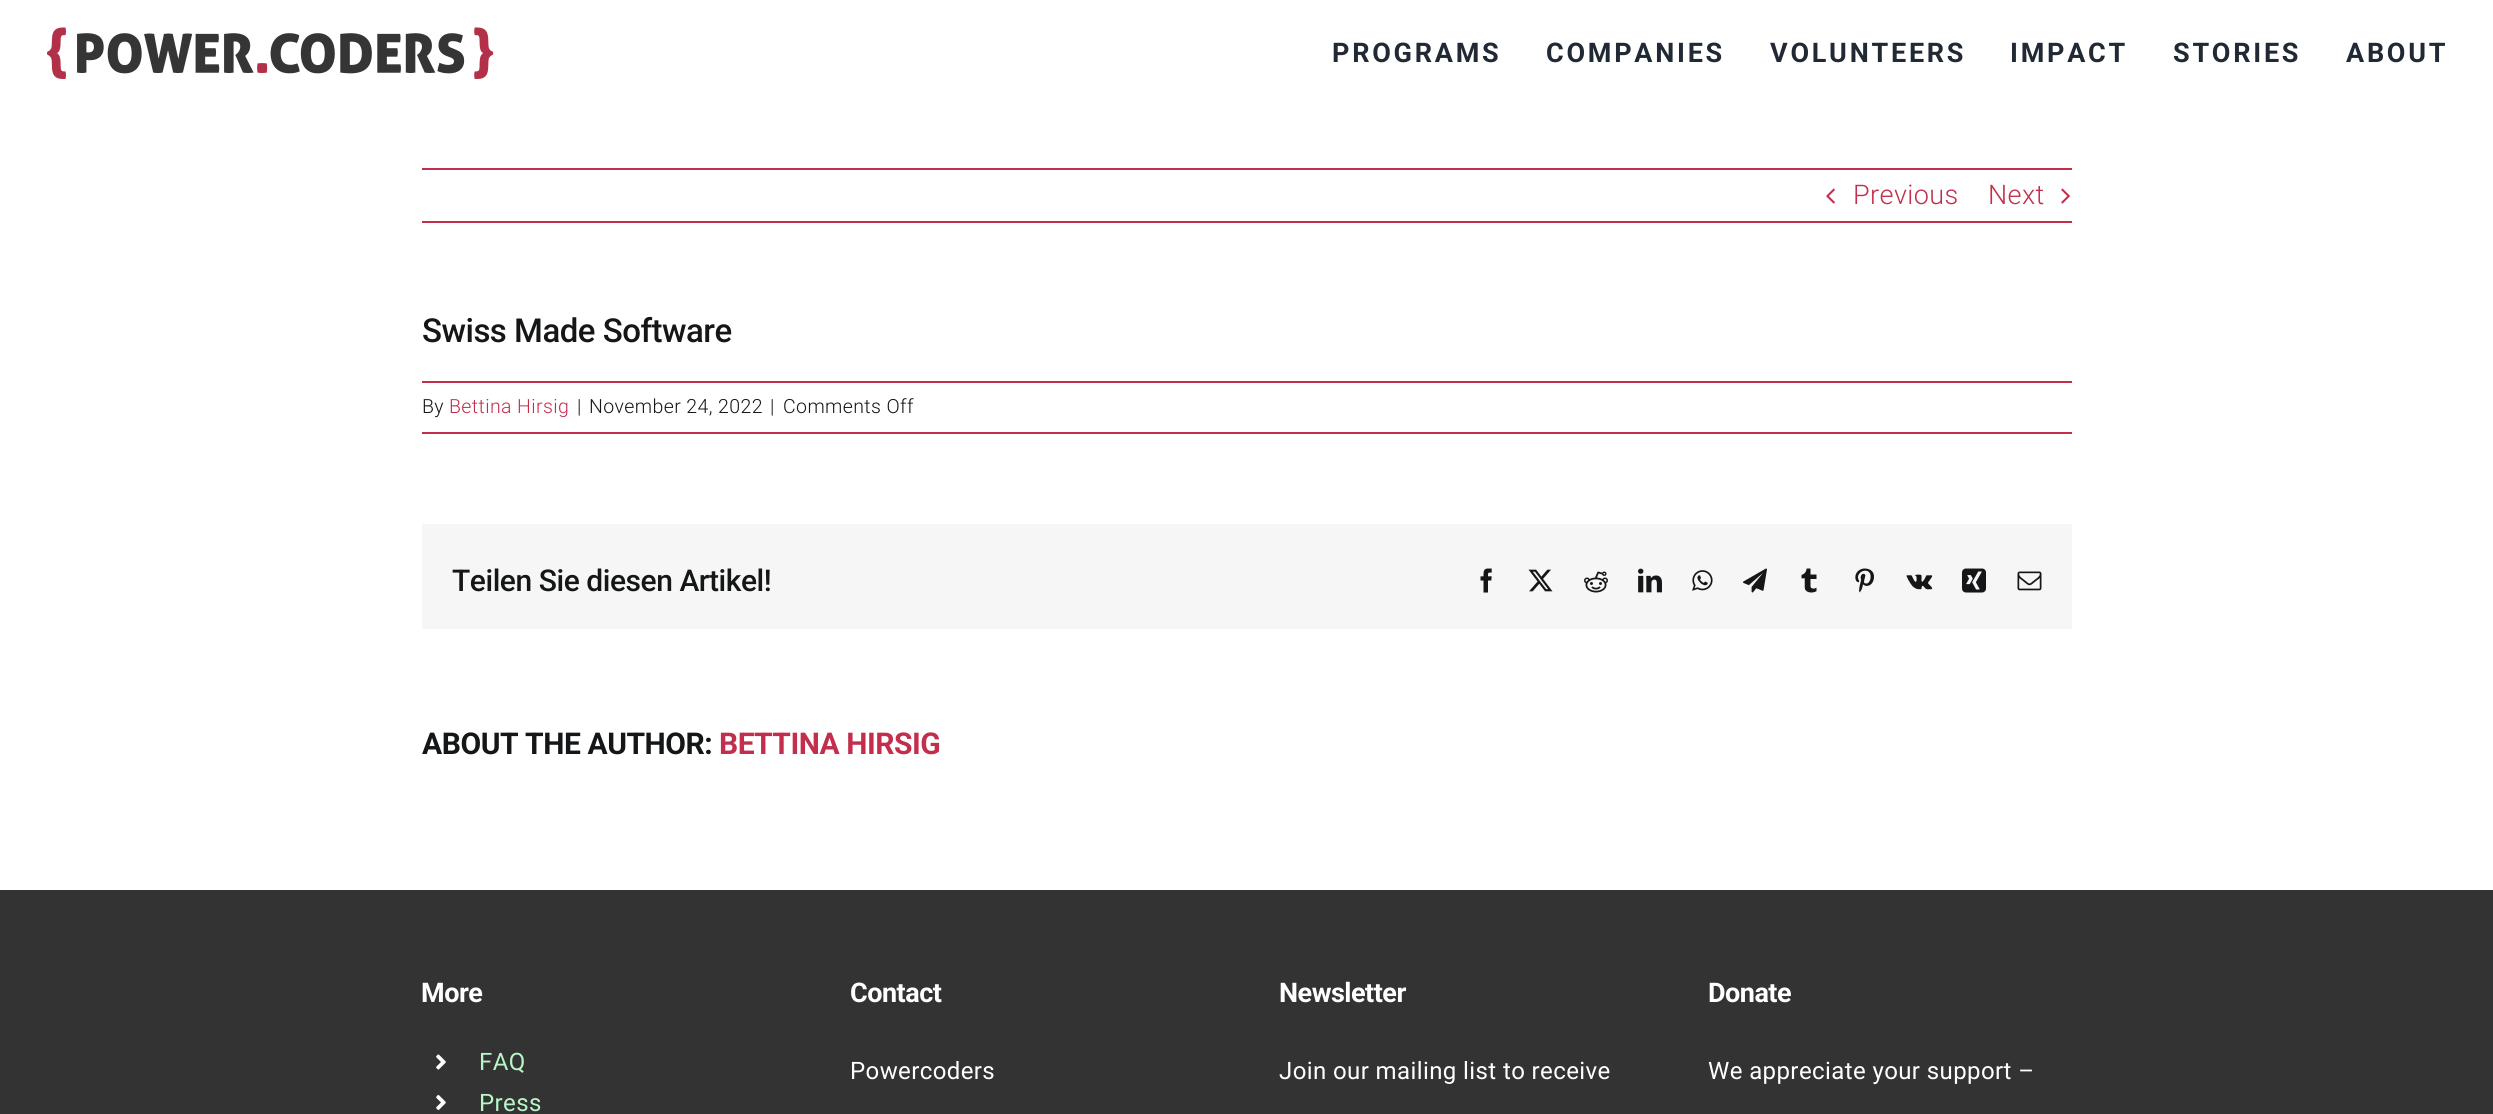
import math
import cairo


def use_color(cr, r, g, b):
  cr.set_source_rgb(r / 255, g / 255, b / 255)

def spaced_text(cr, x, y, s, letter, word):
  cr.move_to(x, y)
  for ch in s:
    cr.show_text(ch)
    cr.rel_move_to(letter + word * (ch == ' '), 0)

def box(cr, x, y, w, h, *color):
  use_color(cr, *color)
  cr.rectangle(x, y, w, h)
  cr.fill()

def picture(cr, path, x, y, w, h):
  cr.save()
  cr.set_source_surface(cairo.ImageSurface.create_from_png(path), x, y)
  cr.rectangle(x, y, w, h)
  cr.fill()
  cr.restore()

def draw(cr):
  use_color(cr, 255, 255, 255)
  cr.paint()
  picture(cr, "img_01.png", 47, 27, 447, 52)
  box(cr, 422, 168, 1650, 2, 195, 46, 76)
  box(cr, 422, 221, 1650, 2, 195, 46, 76)
  picture(cr, "img_02.png", 1826, 188, 9, 16)
  picture(cr, "img_03.png", 2061, 188, 9, 16)
  box(cr, 422, 381, 1650, 2, 195, 46, 76)
  box(cr, 422, 432, 1650, 2, 195, 46, 76)
  box(cr, 422, 524, 1650, 105, 246, 246, 246)
  picture(cr, "img_04.png", 1480, 568, 12, 25)
  picture(cr, "img_05.png", 1528, 569, 25, 23)
  picture(cr, "img_06.png", 1584, 571, 24, 22)
  picture(cr, "img_07.png", 1638, 568, 24, 25)
  picture(cr, "img_08.png", 1692, 570, 21, 21)
  picture(cr, "img_09.png", 1743, 568, 24, 25)
  picture(cr, "img_10.png", 1801, 568, 16, 25)
  picture(cr, "img_11.png", 1855, 568, 19, 25)
  picture(cr, "img_12.png", 1906, 574, 27, 16)
  picture(cr, "img_13.png", 1962, 568, 24, 25)
  picture(cr, "img_14.png", 2017, 571, 25, 20)
  box(cr, 0, 890, 2493, 224, 51, 51, 51)
  picture(cr, "img_15.png", 436, 1054, 10, 16)
  picture(cr, "img_16.png", 436, 1095, 10, 15)
  cr.select_font_face("Roboto", cairo.FONT_SLANT_NORMAL, cairo.FONT_WEIGHT_BOLD)
  cr.set_font_size(27)
  use_color(cr, 33, 41, 52)
  spaced_text(cr, 1332, 62, "PROGRAMS", 2.75, 0)
  spaced_text(cr, 1546, 62, "COMPANIES", 2.75, 0)
  spaced_text(cr, 1770, 62, "VOLUNTEERS", 2.75, 0)
  spaced_text(cr, 2010, 62, "IMPACT", 2.75, 0)
  spaced_text(cr, 2173, 62, "STORIES", 2.75, 0)
  spaced_text(cr, 2346, 62, "ABOUT", 2.75, 0)
  cr.select_font_face("Roboto Light")
  use_color(cr, 195, 46, 76)
  spaced_text(cr, 1853, 204, "Previous", 0.4, 0)
  spaced_text(cr, 1988, 204, "Next", 0.4, 0)
  cr.select_font_face("Roboto Medium")
  cr.set_font_size(33)
  use_color(cr, 20, 22, 23)
  spaced_text(cr, 422, 342, "Swiss Made Software", -0.5, 0)
  cr.select_font_face("Roboto Light")
  cr.set_font_size(19.5)
  spaced_text(cr, 422, 413, "By", 0.4, 0)
  use_color(cr, 195, 46, 76)
  spaced_text(cr, 449, 413, "Bettina Hirsig", 0.4, 0)
  use_color(cr, 20, 22, 23)
  spaced_text(cr, 577, 413, "|", 0.4, 0)
  spaced_text(cr, 589, 413, "November 24, 2022", 0.4, 0)
  spaced_text(cr, 770, 413, "|", 0.4, 0)
  spaced_text(cr, 783, 413, "Comments Off", 0.4, 0)
  cr.select_font_face("Roboto Medium")
  cr.set_font_size(30)
  spaced_text(cr, 452, 591, "Teilen Sie diesen Artikel!", -0.45, 0)
  cr.select_font_face("Roboto", cairo.FONT_SLANT_NORMAL, cairo.FONT_WEIGHT_BOLD)
  spaced_text(cr, 422, 754, "ABOUT THE AUTHOR:", -0.45, 0)
  use_color(cr, 195, 46, 76)
  spaced_text(cr, 719, 754, "BETTINA HIRSIG", -0.45, 0)
  cr.set_font_size(27)
  use_color(cr, 255, 255, 255)
  spaced_text(cr, 421, 1002, "More", -0.5, 0)
  cr.select_font_face("Roboto")
  cr.set_font_size(24)
  use_color(cr, 182, 246, 199)
  spaced_text(cr, 479, 1070, "FAQ", 0.4, 0)
  spaced_text(cr, 479, 1111, "Press", 0.4, 0)
  cr.select_font_face("Roboto", cairo.FONT_SLANT_NORMAL, cairo.FONT_WEIGHT_BOLD)
  cr.set_font_size(27)
  use_color(cr, 255, 255, 255)
  spaced_text(cr, 850, 1002, "Contact", -0.5, 0)
  cr.select_font_face("Roboto")
  cr.set_font_size(24)
  spaced_text(cr, 850, 1079, "Powercoders", 0.4, 0)
  cr.select_font_face("Roboto", cairo.FONT_SLANT_NORMAL, cairo.FONT_WEIGHT_BOLD)
  cr.set_font_size(27)
  spaced_text(cr, 1279, 1002, "Newsletter", -0.5, 0)
  cr.select_font_face("Roboto")
  cr.set_font_size(24)
  spaced_text(cr, 1279, 1079, "Join our mailing list to receive", 0.4, 0)
  cr.select_font_face("Roboto", cairo.FONT_SLANT_NORMAL, cairo.FONT_WEIGHT_BOLD)
  cr.set_font_size(27)
  spaced_text(cr, 1708, 1002, "Donate", -0.5, 0)
  cr.select_font_face("Roboto")
  cr.set_font_size(24)
  spaced_text(cr, 1708, 1079, "We appreciate your support –", 0.4, 0)


surface = cairo.ImageSurface(cairo.FORMAT_RGB24, 2493, 1114)
cr = cairo.Context(surface)
options = cairo.FontOptions()
options.set_hint_metrics(cairo.HINT_METRICS_OFF)
options.set_hint_style(cairo.HINT_STYLE_NONE)
cr.set_font_options(options)
cr.set_miter_limit(4)
draw(cr)
surface.write_to_png("out.png")
